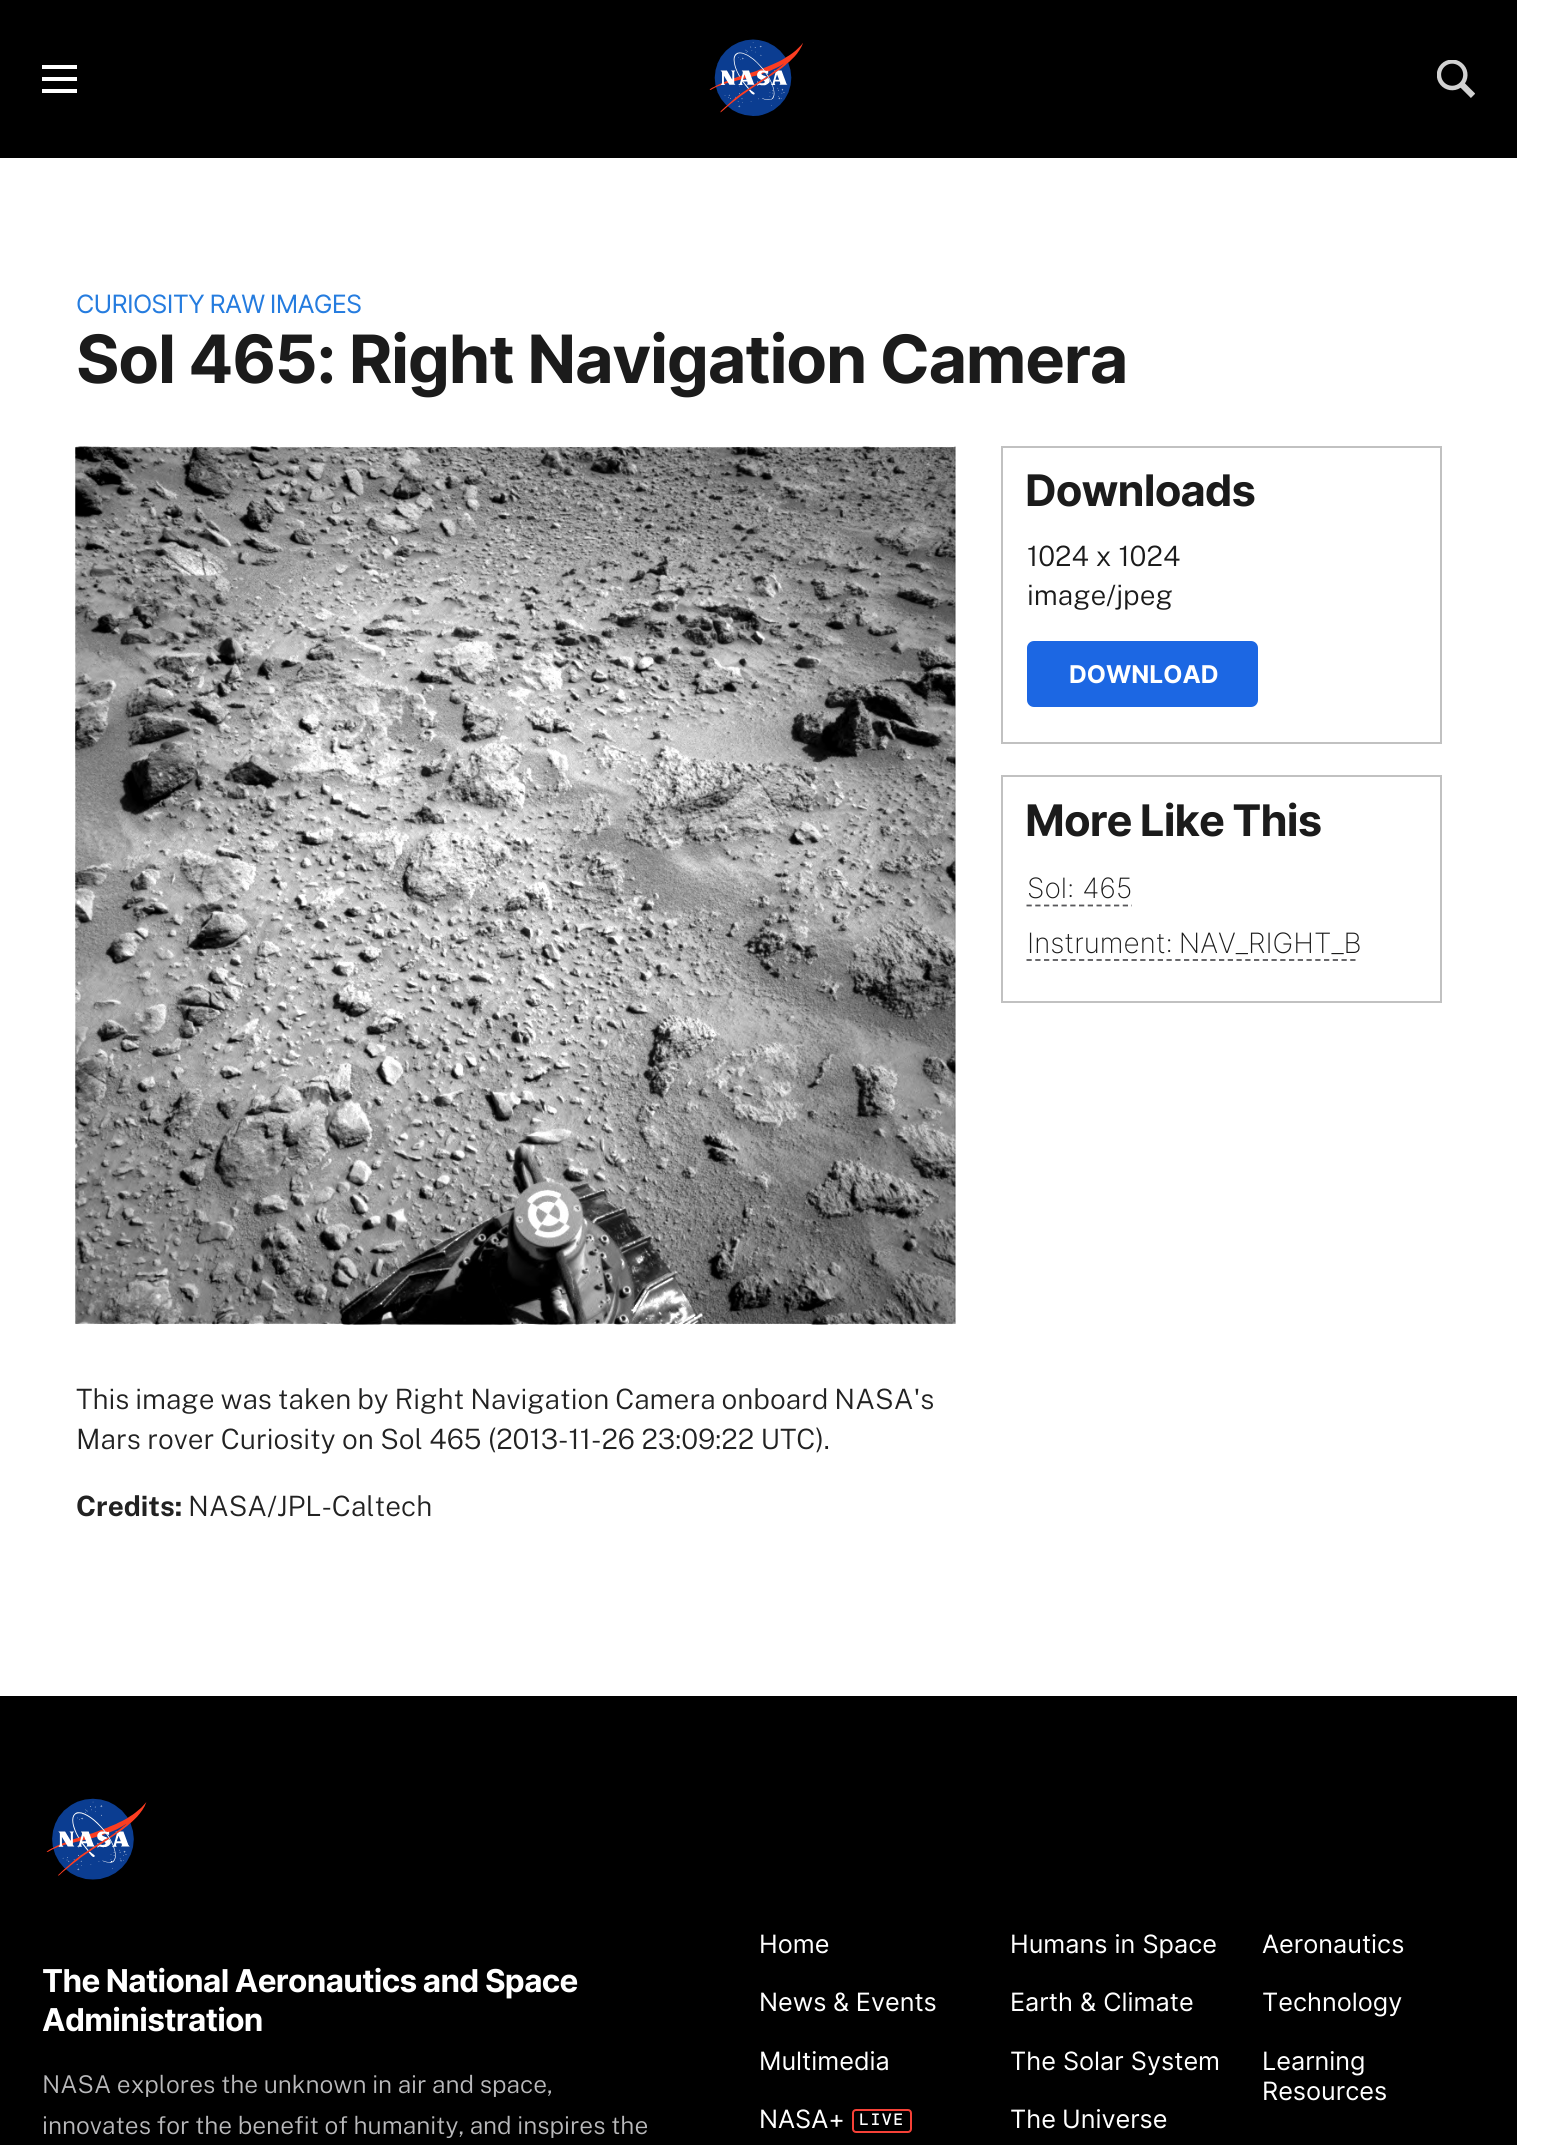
import math
import cairo


def use_color(cr, r, g, b):
  cr.set_source_rgb(r / 255, g / 255, b / 255)

def text(cr, x, y, s, family, size, color, bold=False, italic=False):
  cr.select_font_face(family, cairo.FONT_SLANT_ITALIC if italic else cairo.FONT_SLANT_NORMAL, cairo.FONT_WEIGHT_BOLD if bold else cairo.FONT_WEIGHT_NORMAL)
  cr.set_font_size(size)
  use_color(cr, *color)
  cr.move_to(x, y)
  cr.show_text(s)

def spaced_text(cr, x, y, s, letter, word):
  cr.move_to(x, y)
  for ch in s:
    cr.show_text(ch)
    cr.rel_move_to(letter + word * (ch == ' '), 0)

def box(cr, x, y, w, h, *color):
  use_color(cr, *color)
  cr.rectangle(x, y, w, h)
  cr.fill()

def round_rect(cr, x, y, w, h, r):
  cr.new_sub_path()
  for i, (u, v) in enumerate([(x + w - r, y + h - r), (x + r, y + h - r), (x + r, y + r), (x + w - r, y + r)]):
    cr.arc(u, v, r, i * math.pi / 2, (i + 1) * math.pi / 2)
  cr.close_path()

def picture(cr, path, x, y, w, h):
  cr.save()
  cr.set_source_surface(cairo.ImageSurface.create_from_png(path), x, y)
  cr.rectangle(x, y, w, h)
  cr.fill()
  cr.restore()

def draw(cr):
  use_color(cr, 255, 255, 255)
  cr.paint()
  box(cr, 0, 0, 1517, 158, 0, 0, 0)
  box(cr, 42, 65, 35, 4, 255, 255, 255)
  box(cr, 42, 77, 35, 4, 255, 255, 255)
  box(cr, 42, 89, 35, 4, 255, 255, 255)
  picture(cr, "img_01.png", 709, 39, 94, 77)
  picture(cr, "img_02.png", 1437, 60, 38, 38)
  cr.rectangle(1002, 447, 439, 296)
  use_color(cr, 193, 193, 193)
  cr.stroke()
  use_color(cr, 28, 103, 227)
  round_rect(cr, 1027, 641, 231, 66, 7)
  cr.fill()
  cr.rectangle(1002, 776, 439, 226)
  use_color(cr, 193, 193, 193)
  cr.stroke()
  cr.new_path()
  cr.move_to(1026.5, 905.5)
  cr.line_to(1132, 905.5)
  use_color(cr, 88, 88, 91)
  cr.set_line_width(1.8)
  cr.set_dash([5.25, 3.5])
  cr.stroke()
  cr.new_path()
  cr.move_to(1026.5, 960)
  cr.line_to(1357.5, 960)
  cr.stroke()
  picture(cr, "img_03.png", 75, 446, 881, 879)
  box(cr, 0, 1696, 1517, 449, 0, 0, 0)
  picture(cr, "img_04.png", 46, 1798, 101, 82)
  round_rect(cr, 853, 2110, 58, 22, 3)
  use_color(cr, 246, 65, 55)
  cr.set_line_width(2)
  cr.set_dash([])
  cr.stroke()
  cr.select_font_face("Inter")
  cr.set_font_size(25.25)
  use_color(cr, 37, 124, 223)
  spaced_text(cr, 76, 313, "CURIOSITY RAW IMAGES", -0.75, -1)
  cr.select_font_face("Inter", cairo.FONT_SLANT_NORMAL, cairo.FONT_WEIGHT_BOLD)
  cr.set_font_size(66.6)
  use_color(cr, 27, 27, 27)
  spaced_text(cr, 76, 383, "Sol 465: Right Navigation Camera", -1.3, -0.5)
  cr.set_font_size(43.5)
  spaced_text(cr, 1025, 506, "Downloads", -0.9, 0)
  text(cr, 1027, 566, "1024 x 1024", "Public Sans Light", 28, (27, 27, 27))
  text(cr, 1027, 605, "image/jpeg", "Public Sans Light", 28, (27, 27, 27))
  text(cr, 1069, 683, "DOWNLOAD", "Inter", 24.5, (255, 255, 255), bold=True)
  cr.set_font_size(43.5)
  use_color(cr, 27, 27, 27)
  spaced_text(cr, 1025, 836, "More Like This", -0.9, -1)
  text(cr, 1027, 898, "Sol: 465", "Inter ExtraLight", 28, (27, 27, 27))
  spaced_text(cr, 1027, 953, "Instrument: NAV_RIGHT_B", 0, -2)
  cr.select_font_face("Public Sans Light")
  use_color(cr, 34, 34, 34)
  spaced_text(cr, 76, 1409, "This image was taken by Right Navigation Camera onboard NASA's", 0, -1)
  spaced_text(cr, 76, 1449, "Mars rover Curiosity on Sol 465 (2013-11-26 23:09:22 UTC).", 0, -0.5)
  text(cr, 76, 1516, "Credits:", "Public Sans", 28, (34, 34, 34), bold=True)
  text(cr, 188, 1516, "NASA/JPL-Caltech", "Public Sans Light", 28, (34, 34, 34))
  cr.select_font_face("Inter", cairo.FONT_SLANT_NORMAL, cairo.FONT_WEIGHT_BOLD)
  cr.set_font_size(31.5)
  use_color(cr, 255, 255, 255)
  spaced_text(cr, 42, 1992, "The National Aeronautics and Space", -0.65, -0.5)
  spaced_text(cr, 42, 2031, "Administration", -0.65, 0)
  cr.select_font_face("Public Sans Light")
  cr.set_font_size(24.5)
  use_color(cr, 185, 185, 187)
  spaced_text(cr, 42, 2093, "NASA explores the unknown in air and space,", 0, -0.5)
  spaced_text(cr, 42, 2134, "innovates for the benefit of humanity, and inspires the", 0, -0.5)
  text(cr, 759, 1953, "Home", "Inter", 25.25, (255, 255, 255))
  text(cr, 1010, 1953, "Humans in Space", "Inter", 25.25, (255, 255, 255))
  text(cr, 1262, 1953, "Aeronautics", "Inter", 25.25, (255, 255, 255))
  spaced_text(cr, 759, 2011, "News & Events", 0, -0.5)
  text(cr, 1010, 2011, "Earth & Climate", "Inter", 25.25, (255, 255, 255))
  text(cr, 1262, 2011, "Technology", "Inter", 25.25, (255, 255, 255))
  text(cr, 759, 2070, "Multimedia", "Inter", 25.25, (255, 255, 255))
  text(cr, 1010, 2070, "The Solar System", "Inter", 25.25, (255, 255, 255))
  text(cr, 1262, 2070, "Learning", "Inter", 25.25, (255, 255, 255))
  text(cr, 1262, 2100, "Resources", "Inter", 25.25, (255, 255, 255))
  text(cr, 759, 2128, "NASA+", "Inter", 25.25, (255, 255, 255))
  cr.select_font_face("DM Mono Medium")
  cr.set_font_size(16.5)
  spaced_text(cr, 859, 2125, "LIVE", 1.5, 0)
  cr.select_font_face("Inter")
  cr.set_font_size(25.25)
  spaced_text(cr, 1010, 2128, "The Universe", 0, -1)


surface = cairo.ImageSurface(cairo.FORMAT_RGB24, 1542, 2145)
cr = cairo.Context(surface)
options = cairo.FontOptions()
options.set_hint_metrics(cairo.HINT_METRICS_OFF)
options.set_hint_style(cairo.HINT_STYLE_NONE)
cr.set_font_options(options)
cr.set_miter_limit(4)
draw(cr)
surface.write_to_png("out.png")
